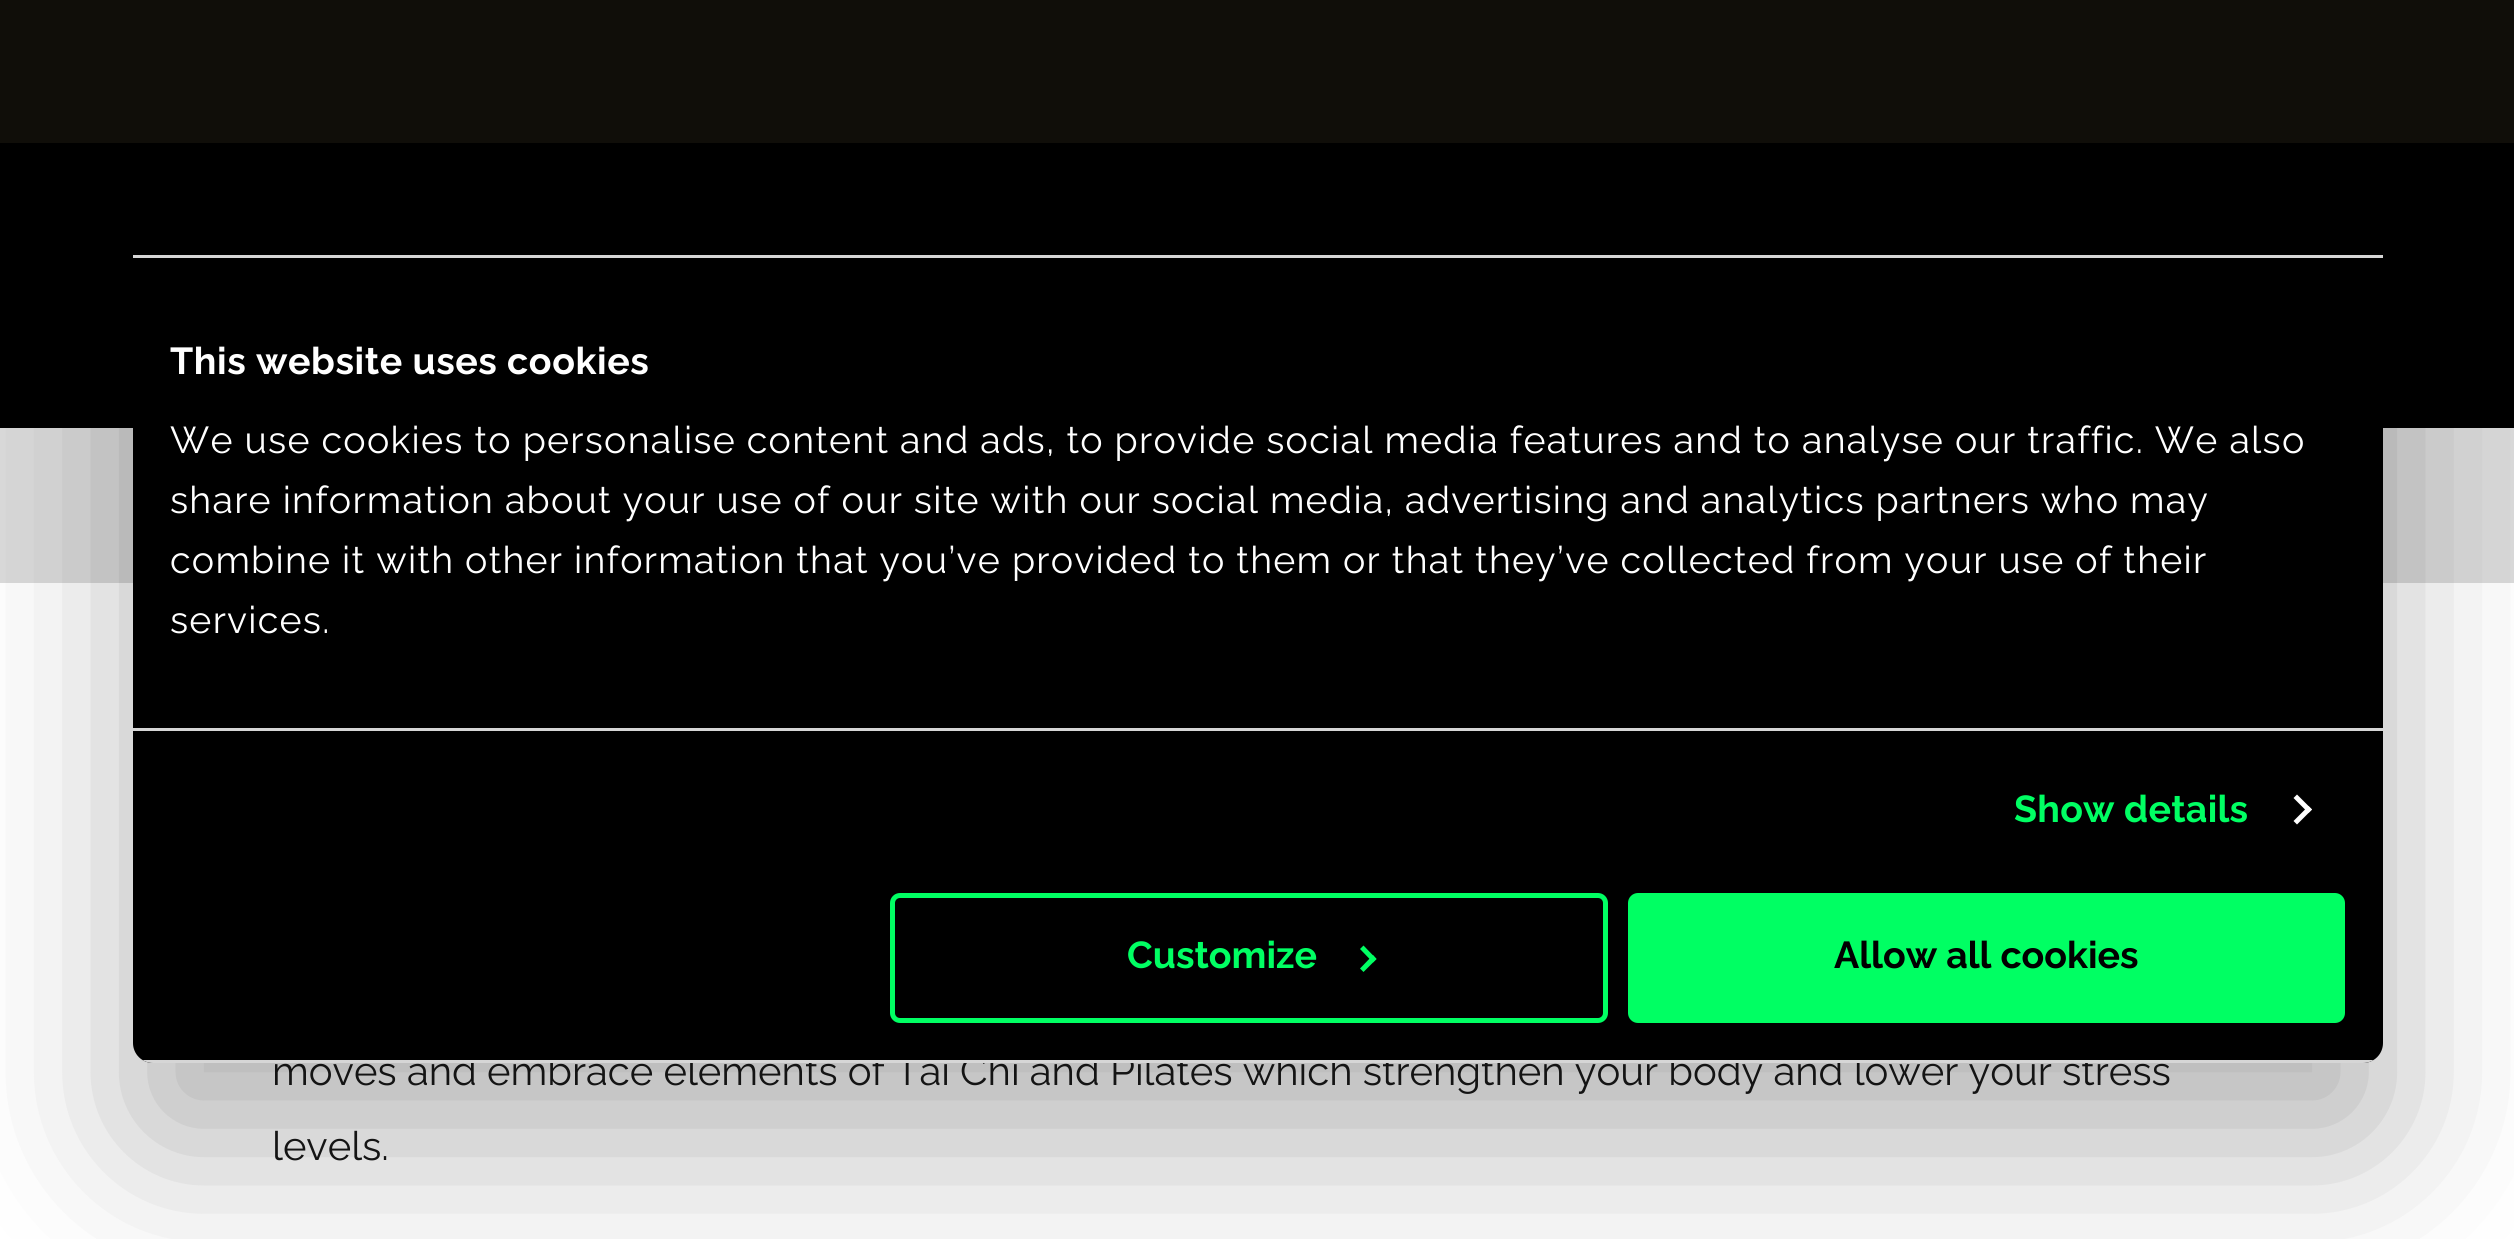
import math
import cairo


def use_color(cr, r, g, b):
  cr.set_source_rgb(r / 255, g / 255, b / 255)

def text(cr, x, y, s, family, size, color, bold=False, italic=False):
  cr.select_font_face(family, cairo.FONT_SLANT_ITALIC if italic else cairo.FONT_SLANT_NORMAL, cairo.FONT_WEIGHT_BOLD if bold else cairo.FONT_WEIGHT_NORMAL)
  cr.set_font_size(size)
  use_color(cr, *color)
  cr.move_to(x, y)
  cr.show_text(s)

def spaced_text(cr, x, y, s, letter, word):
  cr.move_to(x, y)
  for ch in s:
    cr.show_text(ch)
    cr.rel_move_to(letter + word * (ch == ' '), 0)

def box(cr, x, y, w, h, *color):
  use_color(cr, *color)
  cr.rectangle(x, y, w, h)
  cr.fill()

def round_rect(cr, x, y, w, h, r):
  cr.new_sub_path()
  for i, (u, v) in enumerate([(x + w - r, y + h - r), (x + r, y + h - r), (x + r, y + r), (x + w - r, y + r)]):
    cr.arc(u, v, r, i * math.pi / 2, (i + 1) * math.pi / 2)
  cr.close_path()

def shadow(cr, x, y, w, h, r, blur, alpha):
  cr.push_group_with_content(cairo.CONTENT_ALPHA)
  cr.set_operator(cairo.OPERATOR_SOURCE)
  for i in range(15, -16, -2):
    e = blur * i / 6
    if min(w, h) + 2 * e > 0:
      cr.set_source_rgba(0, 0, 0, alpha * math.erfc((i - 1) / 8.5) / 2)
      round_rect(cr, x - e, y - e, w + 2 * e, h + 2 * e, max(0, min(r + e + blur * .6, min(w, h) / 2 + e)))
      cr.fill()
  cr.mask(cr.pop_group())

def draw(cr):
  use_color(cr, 255, 255, 255)
  cr.paint()
  box(cr, 0, 0, 2514, 143, 16, 14, 9)
  box(cr, 0, 143, 2514, 285, 0, 0, 0)
  box(cr, 0, 428, 2514, 155, 219, 219, 219)
  use_color(cr, 0, 0, 0)
  shadow(cr, 133, 260, 2250, 883, 20, 85, 0.3)
  text(cr, 272, 1085, "moves and embrace elements of Tai Chi and Pilates which strengthen your body and lower your stress", "Raleway", 40, (20, 20, 20))
  use_color(cr, 0, 0, 0)
  round_rect(cr, 133, 180, 2250, 883, 20)
  cr.fill()
  round_rect(cr, 892.5, 895.5, 713, 125, 7.5)
  use_color(cr, 0, 255, 99)
  cr.set_line_width(5)
  cr.stroke()
  cr.new_path()
  cr.move_to(1363.5, 945.5)
  cr.line_to(1376.5, 959)
  cr.line_to(1373, 962.5)
  cr.line_to(1360, 949)
  cr.close_path()
  cr.fill()
  cr.new_path()
  cr.move_to(1373, 955)
  cr.line_to(1376.5, 959)
  cr.line_to(1363.5, 972)
  cr.line_to(1360, 968.5)
  cr.close_path()
  cr.fill()
  round_rect(cr, 1630.5, 895.5, 712, 125, 7.5)
  cr.fill_preserve()
  cr.stroke()
  text(cr, 1834, 968, "Allow all cookies", "Raleway", 37.5, (0, 0, 0), bold=True)
  text(cr, 1127, 968, "Customize", "Raleway", 37.5, (0, 255, 99), bold=True)
  cr.save()
  round_rect(cr, 133, 180, 2250, 883, 20)
  cr.clip()
  box(cr, 142, 1060, 2232, 3, 214, 214, 214)
  cr.restore()
  use_color(cr, 255, 255, 255)
  cr.new_path()
  cr.move_to(2297, 794.5)
  cr.line_to(2312, 809.5)
  cr.line_to(2308.5, 813)
  cr.line_to(2293.5, 798)
  cr.close_path()
  cr.fill()
  cr.new_path()
  cr.move_to(2308.5, 806)
  cr.line_to(2312, 809.5)
  cr.line_to(2297, 824.5)
  cr.line_to(2293.5, 821)
  cr.close_path()
  cr.fill()
  cr.select_font_face("Raleway")
  spaced_text(cr, 170, 633, "services.", 1.25, 0)
  spaced_text(cr, 170, 573, "combine it with other information that you’ve provided to them or that they’ve collected from your use of their", 1.25, 0)
  spaced_text(cr, 170, 513, "share information about your use of our site with our social media, advertising and analytics partners who may", 1.25, 0)
  spaced_text(cr, 170, 453, "We use cookies to personalise content and ads, to provide social media features and to analyse our traffic. We also", 1.25, 0)
  cr.select_font_face("Raleway", cairo.FONT_SLANT_NORMAL, cairo.FONT_WEIGHT_BOLD)
  spaced_text(cr, 170, 374, "This website uses cookies", 0.6, 0)
  box(cr, 133, 728, 2250, 3, 214, 214, 214)
  use_color(cr, 0, 255, 99)
  spaced_text(cr, 2014, 822, "Show details", 0.25, 0)
  box(cr, 133, 255, 2250, 3, 214, 214, 214)
  text(cr, 272, 1160, "levels.", "Raleway", 40, (20, 20, 20))


surface = cairo.ImageSurface(cairo.FORMAT_RGB24, 2514, 1239)
cr = cairo.Context(surface)
options = cairo.FontOptions()
options.set_hint_metrics(cairo.HINT_METRICS_OFF)
options.set_hint_style(cairo.HINT_STYLE_NONE)
cr.set_font_options(options)
cr.set_miter_limit(4)
draw(cr)
surface.write_to_png("out.png")
